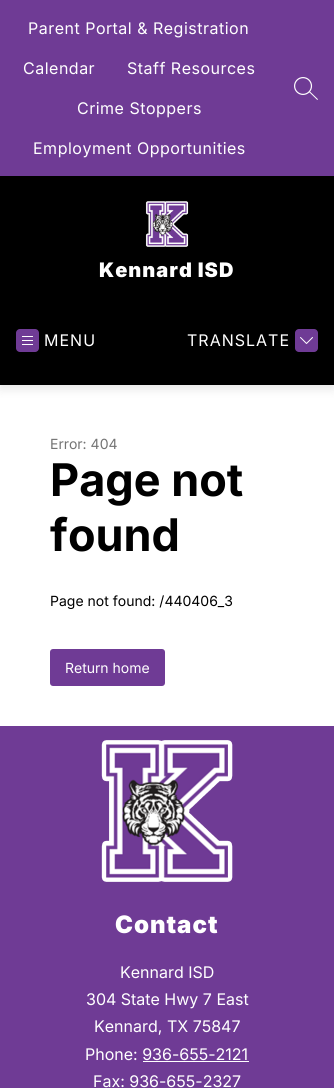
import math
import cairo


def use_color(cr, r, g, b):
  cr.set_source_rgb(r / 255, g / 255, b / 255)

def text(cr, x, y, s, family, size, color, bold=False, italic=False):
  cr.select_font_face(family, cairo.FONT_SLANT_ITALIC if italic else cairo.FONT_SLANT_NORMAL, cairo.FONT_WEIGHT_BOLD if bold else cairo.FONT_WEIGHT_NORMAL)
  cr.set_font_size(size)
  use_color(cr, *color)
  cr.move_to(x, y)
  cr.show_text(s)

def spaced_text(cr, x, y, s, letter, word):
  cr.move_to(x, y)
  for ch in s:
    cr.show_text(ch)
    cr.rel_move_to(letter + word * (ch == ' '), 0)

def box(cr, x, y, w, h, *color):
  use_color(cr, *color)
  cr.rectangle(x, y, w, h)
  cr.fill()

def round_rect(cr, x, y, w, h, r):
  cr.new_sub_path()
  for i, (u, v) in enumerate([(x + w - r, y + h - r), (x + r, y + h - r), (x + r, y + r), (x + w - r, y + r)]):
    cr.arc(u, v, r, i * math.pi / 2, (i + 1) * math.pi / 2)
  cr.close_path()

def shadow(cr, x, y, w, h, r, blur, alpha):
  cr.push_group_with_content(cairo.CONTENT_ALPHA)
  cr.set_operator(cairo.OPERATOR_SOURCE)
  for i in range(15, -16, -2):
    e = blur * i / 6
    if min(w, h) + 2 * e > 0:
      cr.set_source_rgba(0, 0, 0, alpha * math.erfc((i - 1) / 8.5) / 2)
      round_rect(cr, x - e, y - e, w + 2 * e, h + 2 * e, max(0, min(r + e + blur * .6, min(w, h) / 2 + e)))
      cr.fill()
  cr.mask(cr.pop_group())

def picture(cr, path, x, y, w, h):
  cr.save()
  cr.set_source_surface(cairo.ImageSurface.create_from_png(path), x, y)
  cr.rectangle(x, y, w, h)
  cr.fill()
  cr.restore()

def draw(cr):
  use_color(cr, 255, 255, 255)
  cr.paint()
  use_color(cr, 0, 0, 0)
  shadow(cr, 0, 4, 334, 385, 0, 5, 0.1)
  box(cr, 0, 176, 334, 209, 0, 0, 0)
  box(cr, 0, 0, 334, 176, 111, 59, 149)
  picture(cr, "img_01.png", 294, 77, 24, 23)
  picture(cr, "img_02.png", 145, 201, 44, 46)
  picture(cr, "img_03.png", 16, 329, 23, 23)
  picture(cr, "img_04.png", 295, 329, 23, 23)
  round_rect(cr, 50, 649, 115, 37, 3)
  cr.fill()
  box(cr, 0, 726, 334, 362, 111, 59, 149)
  picture(cr, "img_05.png", 101, 740, 132, 142)
  box(cr, 143, 1061, 106, 1, 255, 255, 255)
  cr.select_font_face("Inter")
  cr.set_font_size(16)
  spaced_text(cr, 28, 34, "Parent Portal & Registration", 0.5, 0)
  spaced_text(cr, 23, 74, "Calendar", 0.5, 0)
  spaced_text(cr, 127, 74, "Staff Resources", 0.5, 0)
  spaced_text(cr, 77, 114, "Crime Stoppers", 0.5, 0)
  spaced_text(cr, 33, 154, "Employment Opportunities", 0.5, 0)
  cr.select_font_face("Inter Black")
  cr.set_font_size(20)
  spaced_text(cr, 99, 277, "Kennard ISD", 1, 0)
  cr.select_font_face("Inter")
  cr.set_font_size(16)
  spaced_text(cr, 44, 346, "MENU", 1, 0)
  spaced_text(cr, 187, 346, "TRANSLATE", 1, 0)
  text(cr, 50, 449, "Error: 404", "Inter", 14, (116, 116, 116))
  text(cr, 50, 496, "Page not", "Inter", 45, (0, 0, 0), bold=True)
  text(cr, 50, 551, "found", "Inter", 45, (0, 0, 0), bold=True)
  text(cr, 50, 606, "Page not found: /440406_3", "Inter", 14, (0, 0, 0))
  text(cr, 65, 673, "Return home", "Inter", 14, (255, 255, 255))
  cr.select_font_face("Inter Black")
  cr.set_font_size(24)
  spaced_text(cr, 115, 933, "Contact", 1, 0)
  text(cr, 120, 978, "Kennard ISD", "Inter", 16, (255, 255, 255))
  text(cr, 86, 1005, "304 State Hwy 7 East", "Inter", 16, (255, 255, 255))
  text(cr, 94, 1032, "Kennard, TX 75847", "Inter", 16, (255, 255, 255))
  text(cr, 85, 1060, "Phone: 936-655-2121", "Inter", 16, (255, 255, 255))
  text(cr, 93, 1087, "Fax: 936-655-2327", "Inter", 16, (255, 255, 255))


surface = cairo.ImageSurface(cairo.FORMAT_RGB24, 334, 1088)
cr = cairo.Context(surface)
options = cairo.FontOptions()
options.set_hint_metrics(cairo.HINT_METRICS_OFF)
options.set_hint_style(cairo.HINT_STYLE_NONE)
cr.set_font_options(options)
cr.set_miter_limit(4)
draw(cr)
surface.write_to_png("out.png")
